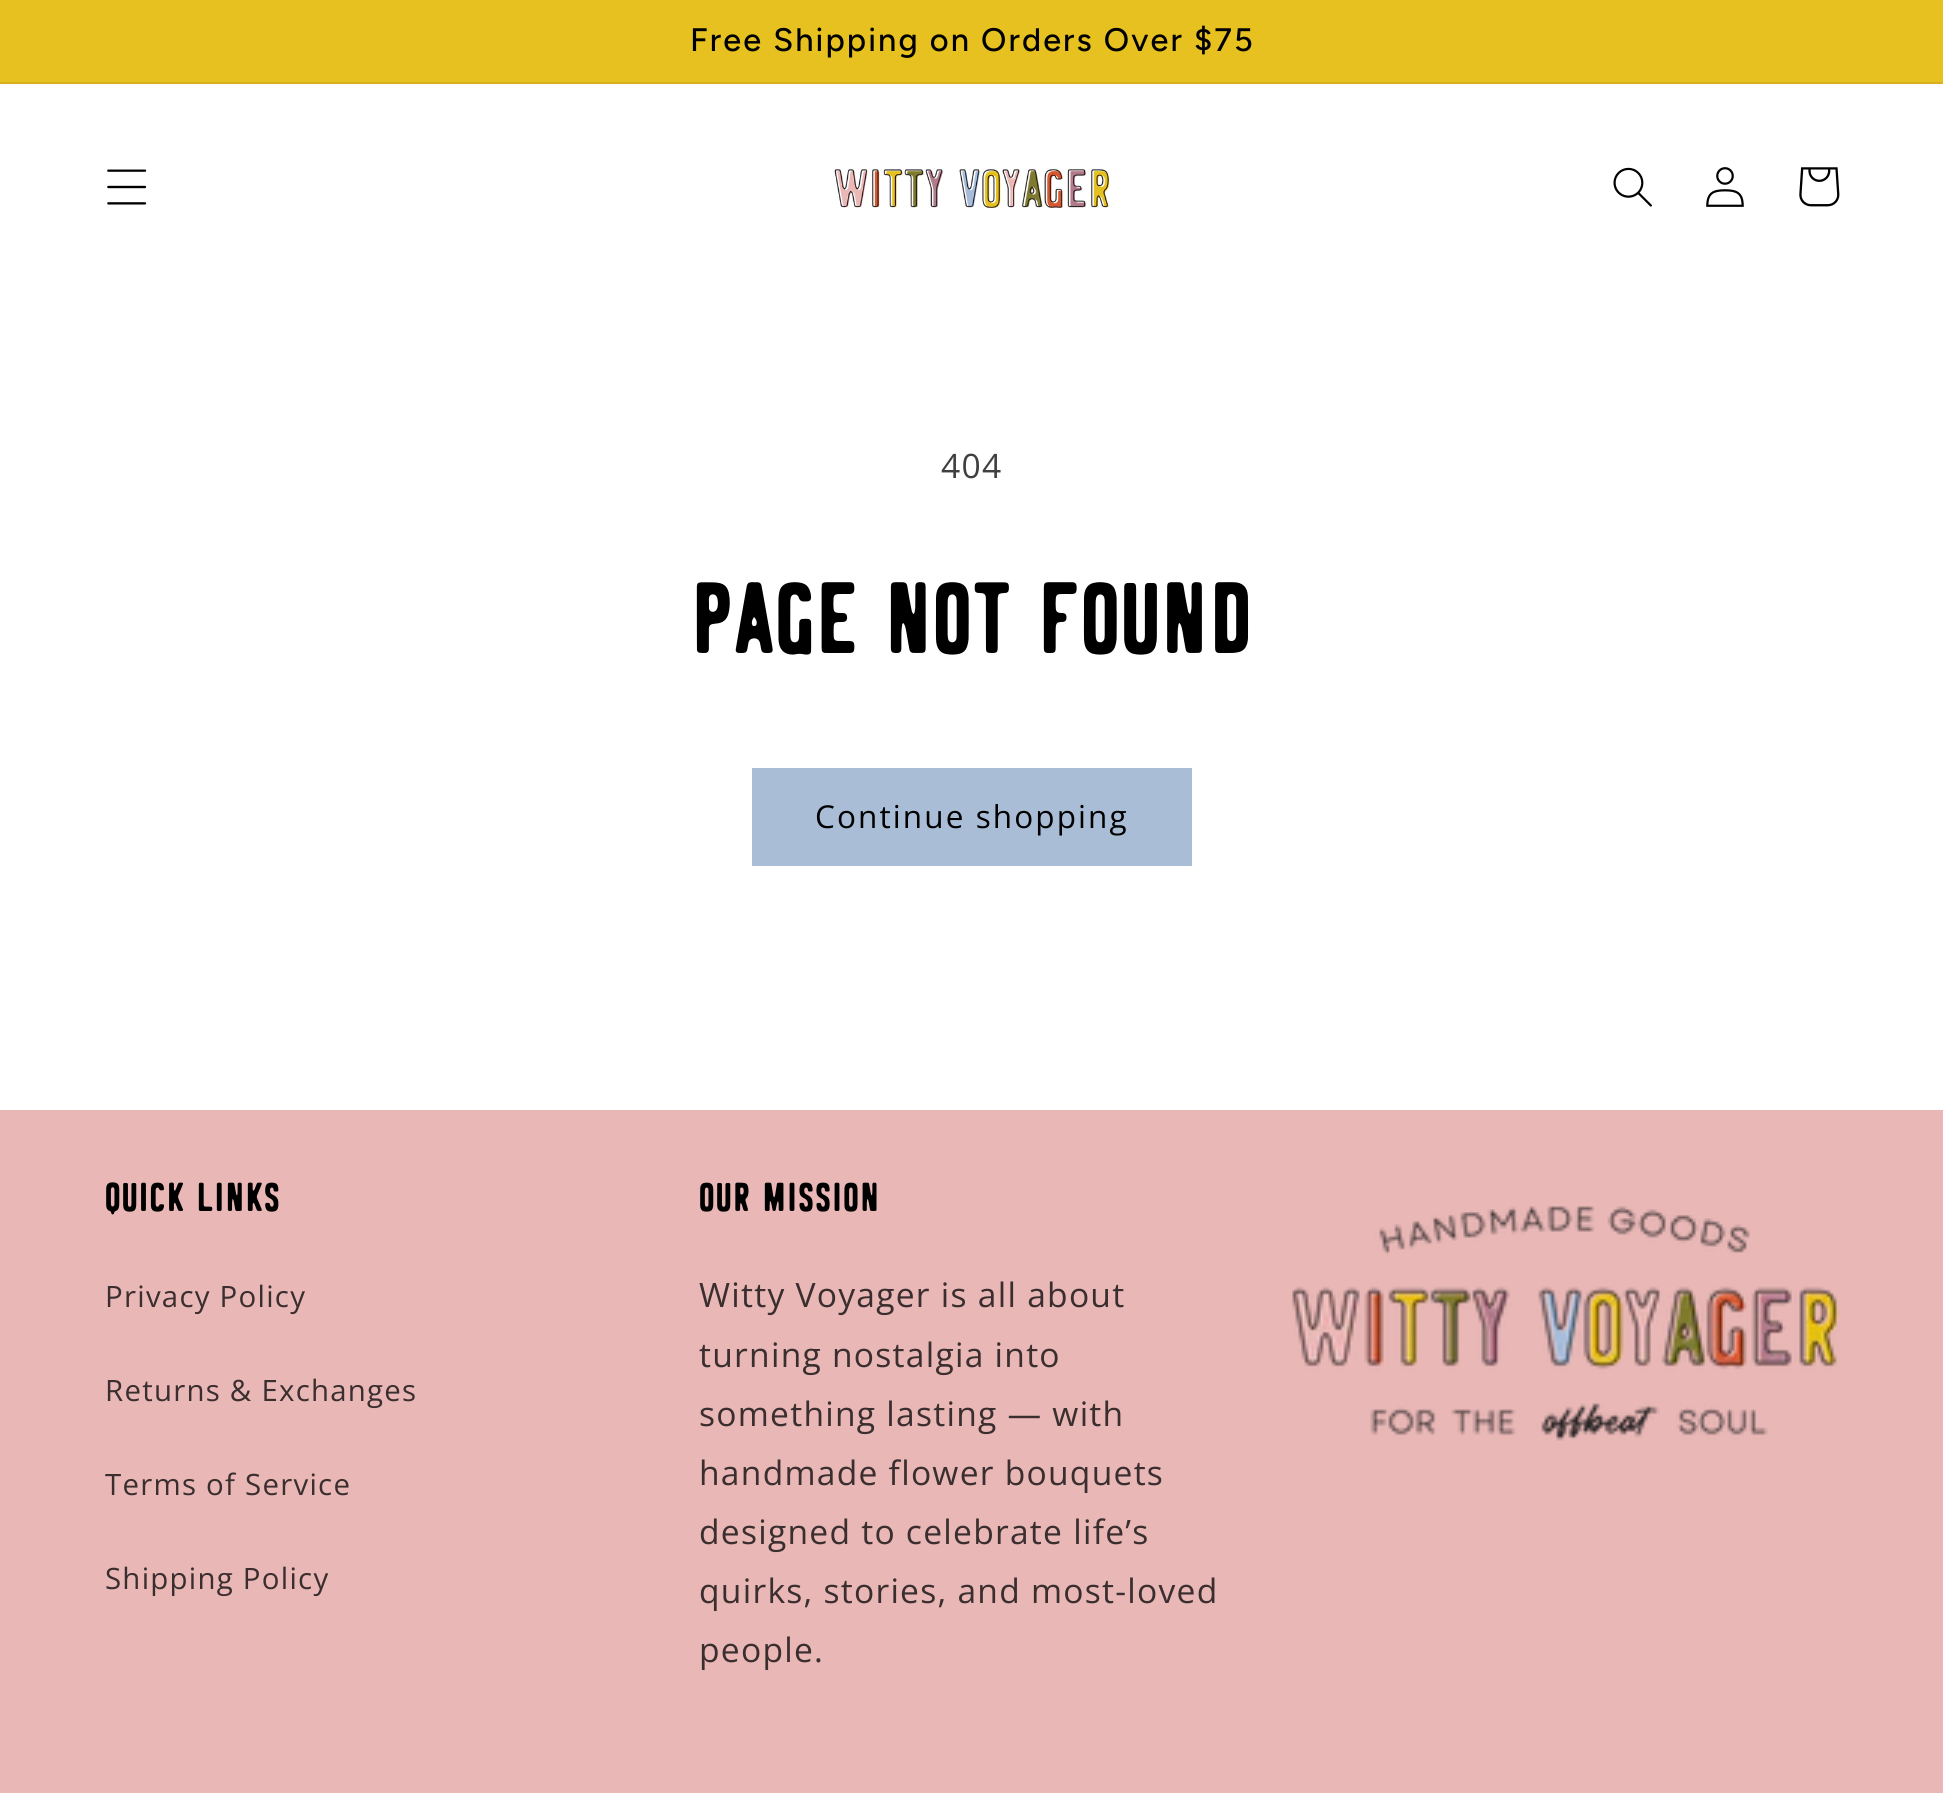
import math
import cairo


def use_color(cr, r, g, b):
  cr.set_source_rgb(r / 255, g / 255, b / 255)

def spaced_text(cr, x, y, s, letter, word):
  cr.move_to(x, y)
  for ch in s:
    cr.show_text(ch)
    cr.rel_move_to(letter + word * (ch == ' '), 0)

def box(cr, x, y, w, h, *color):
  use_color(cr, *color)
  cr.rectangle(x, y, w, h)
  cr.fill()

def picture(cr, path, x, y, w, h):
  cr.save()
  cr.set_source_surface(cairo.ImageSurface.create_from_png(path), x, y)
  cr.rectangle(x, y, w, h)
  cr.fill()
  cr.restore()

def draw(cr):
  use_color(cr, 255, 255, 255)
  cr.paint()
  box(cr, 0, 0, 1943, 82, 231, 193, 31)
  box(cr, 0, 82, 1943, 2, 213, 178, 29)
  picture(cr, "img_01.png", 107, 169, 40, 36)
  picture(cr, "img_02.png", 834, 169, 276, 39)
  picture(cr, "img_03.png", 1613, 167, 39, 40)
  picture(cr, "img_04.png", 1706, 167, 38, 40)
  picture(cr, "img_05.png", 1799, 167, 41, 40)
  box(cr, 752, 768, 440, 98, 169, 189, 215)
  box(cr, 0, 1110, 1943, 683, 232, 183, 182)
  picture(cr, "img_06.png", 1292, 1206, 548, 235)
  cr.select_font_face("Figtree Medium")
  cr.set_font_size(32.5)
  use_color(cr, 0, 0, 0)
  spaced_text(cr, 690, 51, "Free Shipping on Orders Over $75", 2.1, 0)
  cr.select_font_face("Open Sans")
  cr.set_font_size(33.6)
  use_color(cr, 64, 64, 64)
  spaced_text(cr, 941, 478, "404", 1.25, 0)
  cr.select_font_face("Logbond")
  cr.set_font_size(100)
  use_color(cr, 0, 0, 0)
  spaced_text(cr, 691, 653, "Page not found", 1.5, 0)
  cr.select_font_face("Open Sans")
  cr.set_font_size(31.5)
  spaced_text(cr, 815, 828, "Continue shopping", 2.1, 0)
  cr.select_font_face("Logbond")
  cr.set_font_size(40)
  spaced_text(cr, 105, 1211, "Quick links", 1.5, 0)
  cr.select_font_face("Open Sans")
  cr.set_font_size(29.4)
  use_color(cr, 58, 46, 46)
  spaced_text(cr, 105, 1307, "Privacy Policy", 1.25, 0)
  spaced_text(cr, 105, 1401, "Returns & Exchanges", 1.25, 0)
  spaced_text(cr, 105, 1495, "Terms of Service", 1.25, 0)
  spaced_text(cr, 105, 1589, "Shipping Policy", 1.25, 0)
  cr.select_font_face("Logbond")
  cr.set_font_size(40)
  use_color(cr, 0, 0, 0)
  spaced_text(cr, 699, 1211, "Our mission", 1.5, 0)
  cr.select_font_face("Open Sans")
  cr.set_font_size(33.6)
  use_color(cr, 58, 46, 46)
  spaced_text(cr, 699, 1307, "Witty Voyager is all about", 1.25, 0)
  spaced_text(cr, 699, 1367, "turning nostalgia into", 1.25, 0)
  spaced_text(cr, 699, 1426, "something lasting — with", 1.25, 0)
  spaced_text(cr, 699, 1485, "handmade flower bouquets", 1.25, 0)
  spaced_text(cr, 699, 1544, "designed to celebrate life’s", 1.25, 0)
  spaced_text(cr, 699, 1603, "quirks, stories, and most-loved", 1.25, 0)
  spaced_text(cr, 699, 1662, "people.", 1.25, 0)


surface = cairo.ImageSurface(cairo.FORMAT_RGB24, 1943, 1793)
cr = cairo.Context(surface)
options = cairo.FontOptions()
options.set_hint_metrics(cairo.HINT_METRICS_OFF)
options.set_hint_style(cairo.HINT_STYLE_NONE)
cr.set_font_options(options)
cr.set_miter_limit(4)
draw(cr)
surface.write_to_png("out.png")
